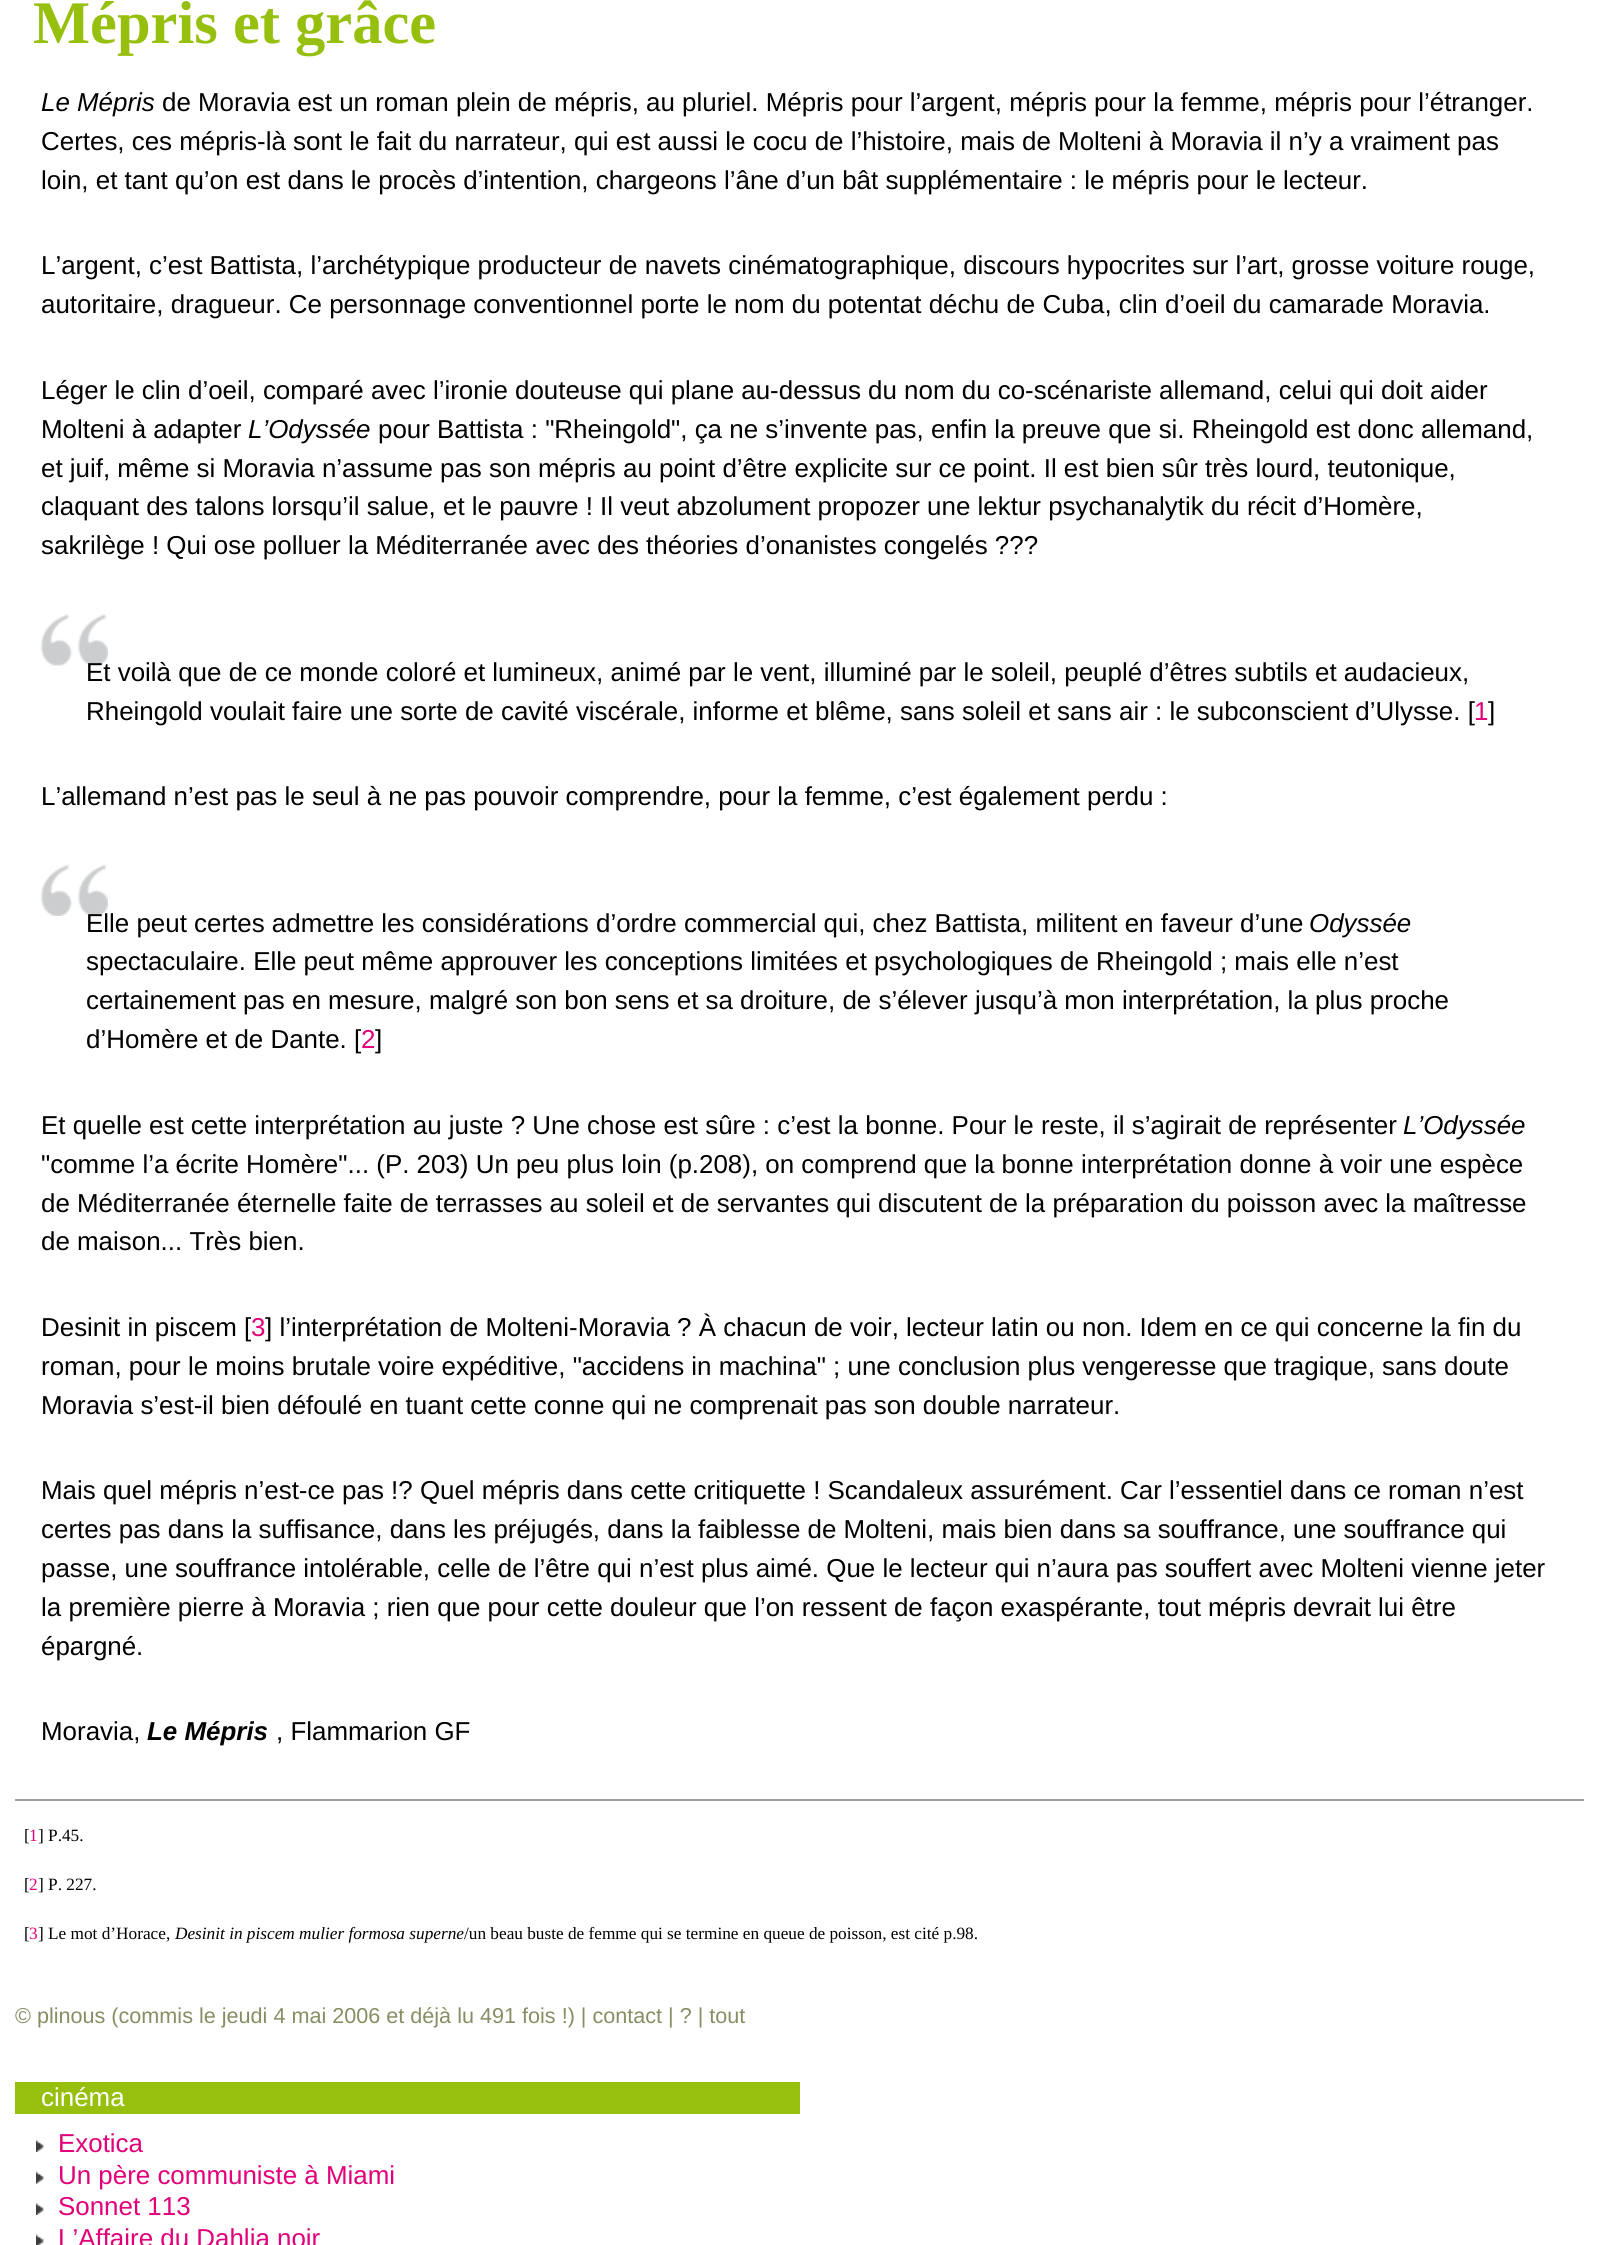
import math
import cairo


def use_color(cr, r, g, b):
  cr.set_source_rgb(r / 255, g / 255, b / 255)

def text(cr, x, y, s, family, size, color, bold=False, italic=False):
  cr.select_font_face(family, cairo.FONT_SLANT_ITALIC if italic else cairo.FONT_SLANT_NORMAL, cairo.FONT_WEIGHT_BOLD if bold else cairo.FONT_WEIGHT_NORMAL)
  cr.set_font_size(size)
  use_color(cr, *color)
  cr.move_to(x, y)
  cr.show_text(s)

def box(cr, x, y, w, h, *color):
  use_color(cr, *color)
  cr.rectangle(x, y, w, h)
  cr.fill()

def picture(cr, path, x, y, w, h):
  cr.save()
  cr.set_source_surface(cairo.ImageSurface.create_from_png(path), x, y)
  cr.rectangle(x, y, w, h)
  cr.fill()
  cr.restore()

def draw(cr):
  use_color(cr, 255, 255, 255)
  cr.paint()
  picture(cr, "img_01.png", 40, 614, 68, 52)
  picture(cr, "img_02.png", 40, 864, 68, 52)
  box(cr, 15, 1799, 1569, 2, 160, 160, 160)
  box(cr, 15, 2082, 785, 32, 151, 191, 13)
  picture(cr, "img_03.png", 36, 2139, 8, 13)
  picture(cr, "img_04.png", 36, 2171, 8, 13)
  picture(cr, "img_03.png", 36, 2202, 8, 13)
  picture(cr, "img_05.png", 36, 2234, 8, 11)
  text(cr, 33, 43, "Mépris et grâce", "Liberation Serif", 60.5, (151, 191, 13), bold=True)
  text(cr, 41, 111, "Le Mépris", "Liberation Sans", 25.92, (0, 0, 0), italic=True)
  text(cr, 162, 111, "de Moravia est un roman plein de mépris, au pluriel. Mépris pour l’argent, mépris pour la femme, mépris pour l’étranger.", "Liberation Sans", 25.92, (0, 0, 0))
  text(cr, 41, 150, "Certes, ces mépris-là sont le fait du narrateur, qui est aussi le cocu de l’histoire, mais de Molteni à Moravia il n’y a vraiment pas", "Liberation Sans", 25.92, (0, 0, 0))
  text(cr, 41, 189, "loin, et tant qu’on est dans le procès d’intention, chargeons l’âne d’un bât supplémentaire : le mépris pour le lecteur.", "Liberation Sans", 25.92, (0, 0, 0))
  text(cr, 41, 274, "L’argent, c’est Battista, l’archétypique producteur de navets cinématographique, discours hypocrites sur l’art, grosse voiture rouge,", "Liberation Sans", 25.92, (0, 0, 0))
  text(cr, 41, 313, "autoritaire, dragueur. Ce personnage conventionnel porte le nom du potentat déchu de Cuba, clin d’oeil du camarade Moravia.", "Liberation Sans", 25.92, (0, 0, 0))
  text(cr, 41, 399, "Léger le clin d’oeil, comparé avec l’ironie douteuse qui plane au-dessus du nom du co-scénariste allemand, celui qui doit aider", "Liberation Sans", 25.92, (0, 0, 0))
  text(cr, 41, 438, "Molteni à adapter", "Liberation Sans", 25.92, (0, 0, 0))
  text(cr, 248, 438, "L’Odyssée", "Liberation Sans", 25.92, (0, 0, 0), italic=True)
  text(cr, 378, 438, "pour Battista : \"Rheingold\", ça ne s’invente pas, enfin la preuve que si. Rheingold est donc allemand,", "Liberation Sans", 25.92, (0, 0, 0))
  text(cr, 41, 477, "et juif, même si Moravia n’assume pas son mépris au point d’être explicite sur ce point. Il est bien sûr très lourd, teutonique,", "Liberation Sans", 25.92, (0, 0, 0))
  text(cr, 41, 515, "claquant des talons lorsqu’il salue, et le pauvre ! Il veut abzolument propozer une lektur psychanalytik du récit d’Homère,", "Liberation Sans", 25.92, (0, 0, 0))
  text(cr, 41, 554, "sakrilège ! Qui ose polluer la Méditerranée avec des théories d’onanistes congelés ???", "Liberation Sans", 25.92, (0, 0, 0))
  text(cr, 86, 681, "Et voilà que de ce monde coloré et lumineux, animé par le vent, illuminé par le soleil, peuplé d’êtres subtils et audacieux,", "Liberation Sans", 25.92, (0, 0, 0))
  text(cr, 86, 720, "Rheingold voulait faire une sorte de cavité viscérale, informe et blême, sans soleil et sans air : le subconscient d’Ulysse. [", "Liberation Sans", 25.92, (0, 0, 0))
  text(cr, 1474, 720, "1", "Liberation Sans", 25.92, (226, 0, 122))
  text(cr, 1488, 720, "]", "Liberation Sans", 25.92, (0, 0, 0))
  text(cr, 41, 805, "L’allemand n’est pas le seul à ne pas pouvoir comprendre, pour la femme, c’est également perdu :", "Liberation Sans", 25.92, (0, 0, 0))
  text(cr, 86, 932, "Elle peut certes admettre les considérations d’ordre commercial qui, chez Battista, militent en faveur d’une", "Liberation Sans", 25.92, (0, 0, 0))
  text(cr, 1309, 932, "Odyssée", "Liberation Sans", 25.92, (0, 0, 0), italic=True)
  text(cr, 86, 970, "spectaculaire. Elle peut même approuver les conceptions limitées et psychologiques de Rheingold ; mais elle n’est", "Liberation Sans", 25.92, (0, 0, 0))
  text(cr, 86, 1009, "certainement pas en mesure, malgré son bon sens et sa droiture, de s’élever jusqu’à mon interprétation, la plus proche", "Liberation Sans", 25.92, (0, 0, 0))
  text(cr, 86, 1048, "d’Homère et de Dante. [", "Liberation Sans", 25.92, (0, 0, 0))
  text(cr, 361, 1048, "2", "Liberation Sans", 25.92, (226, 0, 122))
  text(cr, 375, 1048, "]", "Liberation Sans", 25.92, (0, 0, 0))
  text(cr, 41, 1134, "Et quelle est cette interprétation au juste ? Une chose est sûre : c’est la bonne. Pour le reste, il s’agirait de représenter", "Liberation Sans", 25.92, (0, 0, 0))
  text(cr, 1403, 1134, "L’Odyssée", "Liberation Sans", 25.92, (0, 0, 0), italic=True)
  text(cr, 41, 1173, "\"comme l’a écrite Homère\"... (P. 203) Un peu plus loin (p.208), on comprend que la bonne interprétation donne à voir une espèce", "Liberation Sans", 25.92, (0, 0, 0))
  text(cr, 41, 1212, "de Méditerranée éternelle faite de terrasses au soleil et de servantes qui discutent de la préparation du poisson avec la maîtresse", "Liberation Sans", 25.92, (0, 0, 0))
  text(cr, 41, 1250, "de maison... Très bien.", "Liberation Sans", 25.92, (0, 0, 0))
  text(cr, 41, 1336, "Desinit in piscem [", "Liberation Sans", 25.92, (0, 0, 0))
  text(cr, 251, 1336, "3", "Liberation Sans", 25.92, (226, 0, 122))
  text(cr, 265, 1336, "] l’interprétation de Molteni-Moravia ? À chacun de voir, lecteur latin ou non. Idem en ce qui concerne la fin du", "Liberation Sans", 25.92, (0, 0, 0))
  text(cr, 41, 1375, "roman, pour le moins brutale voire expéditive, \"accidens in machina\" ; une conclusion plus vengeresse que tragique, sans doute", "Liberation Sans", 25.92, (0, 0, 0))
  text(cr, 41, 1414, "Moravia s’est-il bien défoulé en tuant cette conne qui ne comprenait pas son double narrateur.", "Liberation Sans", 25.92, (0, 0, 0))
  text(cr, 41, 1499, "Mais quel mépris n’est-ce pas !? Quel mépris dans cette critiquette ! Scandaleux assurément. Car l’essentiel dans ce roman n’est", "Liberation Sans", 25.92, (0, 0, 0))
  text(cr, 41, 1538, "certes pas dans la suffisance, dans les préjugés, dans la faiblesse de Molteni, mais bien dans sa souffrance, une souffrance qui", "Liberation Sans", 25.92, (0, 0, 0))
  text(cr, 41, 1577, "passe, une souffrance intolérable, celle de l’être qui n’est plus aimé. Que le lecteur qui n’aura pas souffert avec Molteni vienne jeter", "Liberation Sans", 25.92, (0, 0, 0))
  text(cr, 41, 1616, "la première pierre à Moravia ; rien que pour cette douleur que l’on ressent de façon exaspérante, tout mépris devrait lui être", "Liberation Sans", 25.92, (0, 0, 0))
  text(cr, 41, 1655, "épargné.", "Liberation Sans", 25.92, (0, 0, 0))
  text(cr, 41, 1740, "Moravia,", "Liberation Sans", 25.92, (0, 0, 0))
  text(cr, 147, 1740, "Le Mépris", "Liberation Sans", 25.92, (0, 0, 0), bold=True, italic=True)
  text(cr, 276, 1740, ", Flammarion GF", "Liberation Sans", 25.92, (0, 0, 0))
  text(cr, 24, 1841, "[", "Liberation Serif", 17.25, (0, 0, 0))
  text(cr, 29, 1841, "1", "Liberation Serif", 17.25, (226, 0, 122))
  text(cr, 38, 1841, "] P.45.", "Liberation Serif", 17.25, (0, 0, 0))
  text(cr, 24, 1890, "[", "Liberation Serif", 17.25, (0, 0, 0))
  text(cr, 29, 1890, "2", "Liberation Serif", 17.25, (226, 0, 122))
  text(cr, 38, 1890, "] P. 227.", "Liberation Serif", 17.25, (0, 0, 0))
  text(cr, 24, 1939, "[", "Liberation Serif", 17.25, (0, 0, 0))
  text(cr, 29, 1939, "3", "Liberation Serif", 17.25, (226, 0, 122))
  text(cr, 38, 1939, "] Le mot d’Horace,", "Liberation Serif", 17.25, (0, 0, 0))
  text(cr, 175, 1939, "Desinit in piscem mulier formosa superne", "Liberation Serif", 17.25, (0, 0, 0), italic=True)
  text(cr, 464, 1939, "/un beau buste de femme qui se termine en queue de poisson, est cité p.98.", "Liberation Serif", 17.25, (0, 0, 0))
  text(cr, 15, 2023, "© plinous (commis le jeudi 4 mai 2006 et déjà lu", "Liberation Sans", 21.6, (132, 143, 99))
  text(cr, 480, 2023, "491 fois !) | contact | ? | tout", "Liberation Sans", 21.6, (132, 143, 99))
  text(cr, 41, 2106, "cinéma", "Liberation Sans", 25.92, (255, 255, 255))
  text(cr, 58, 2152, "Exotica", "Liberation Sans", 25.92, (226, 0, 122))
  text(cr, 58, 2184, "Un père communiste à Miami", "Liberation Sans", 25.92, (226, 0, 122))
  text(cr, 58, 2215, "Sonnet 113", "Liberation Sans", 25.92, (226, 0, 122))
  text(cr, 58, 2247, "L’Affaire du Dahlia noir", "Liberation Sans", 25.92, (226, 0, 122))


surface = cairo.ImageSurface(cairo.FORMAT_RGB24, 1598, 2245)
cr = cairo.Context(surface)
options = cairo.FontOptions()
options.set_hint_metrics(cairo.HINT_METRICS_OFF)
options.set_hint_style(cairo.HINT_STYLE_NONE)
cr.set_font_options(options)
cr.set_miter_limit(4)
draw(cr)
surface.write_to_png("out.png")
